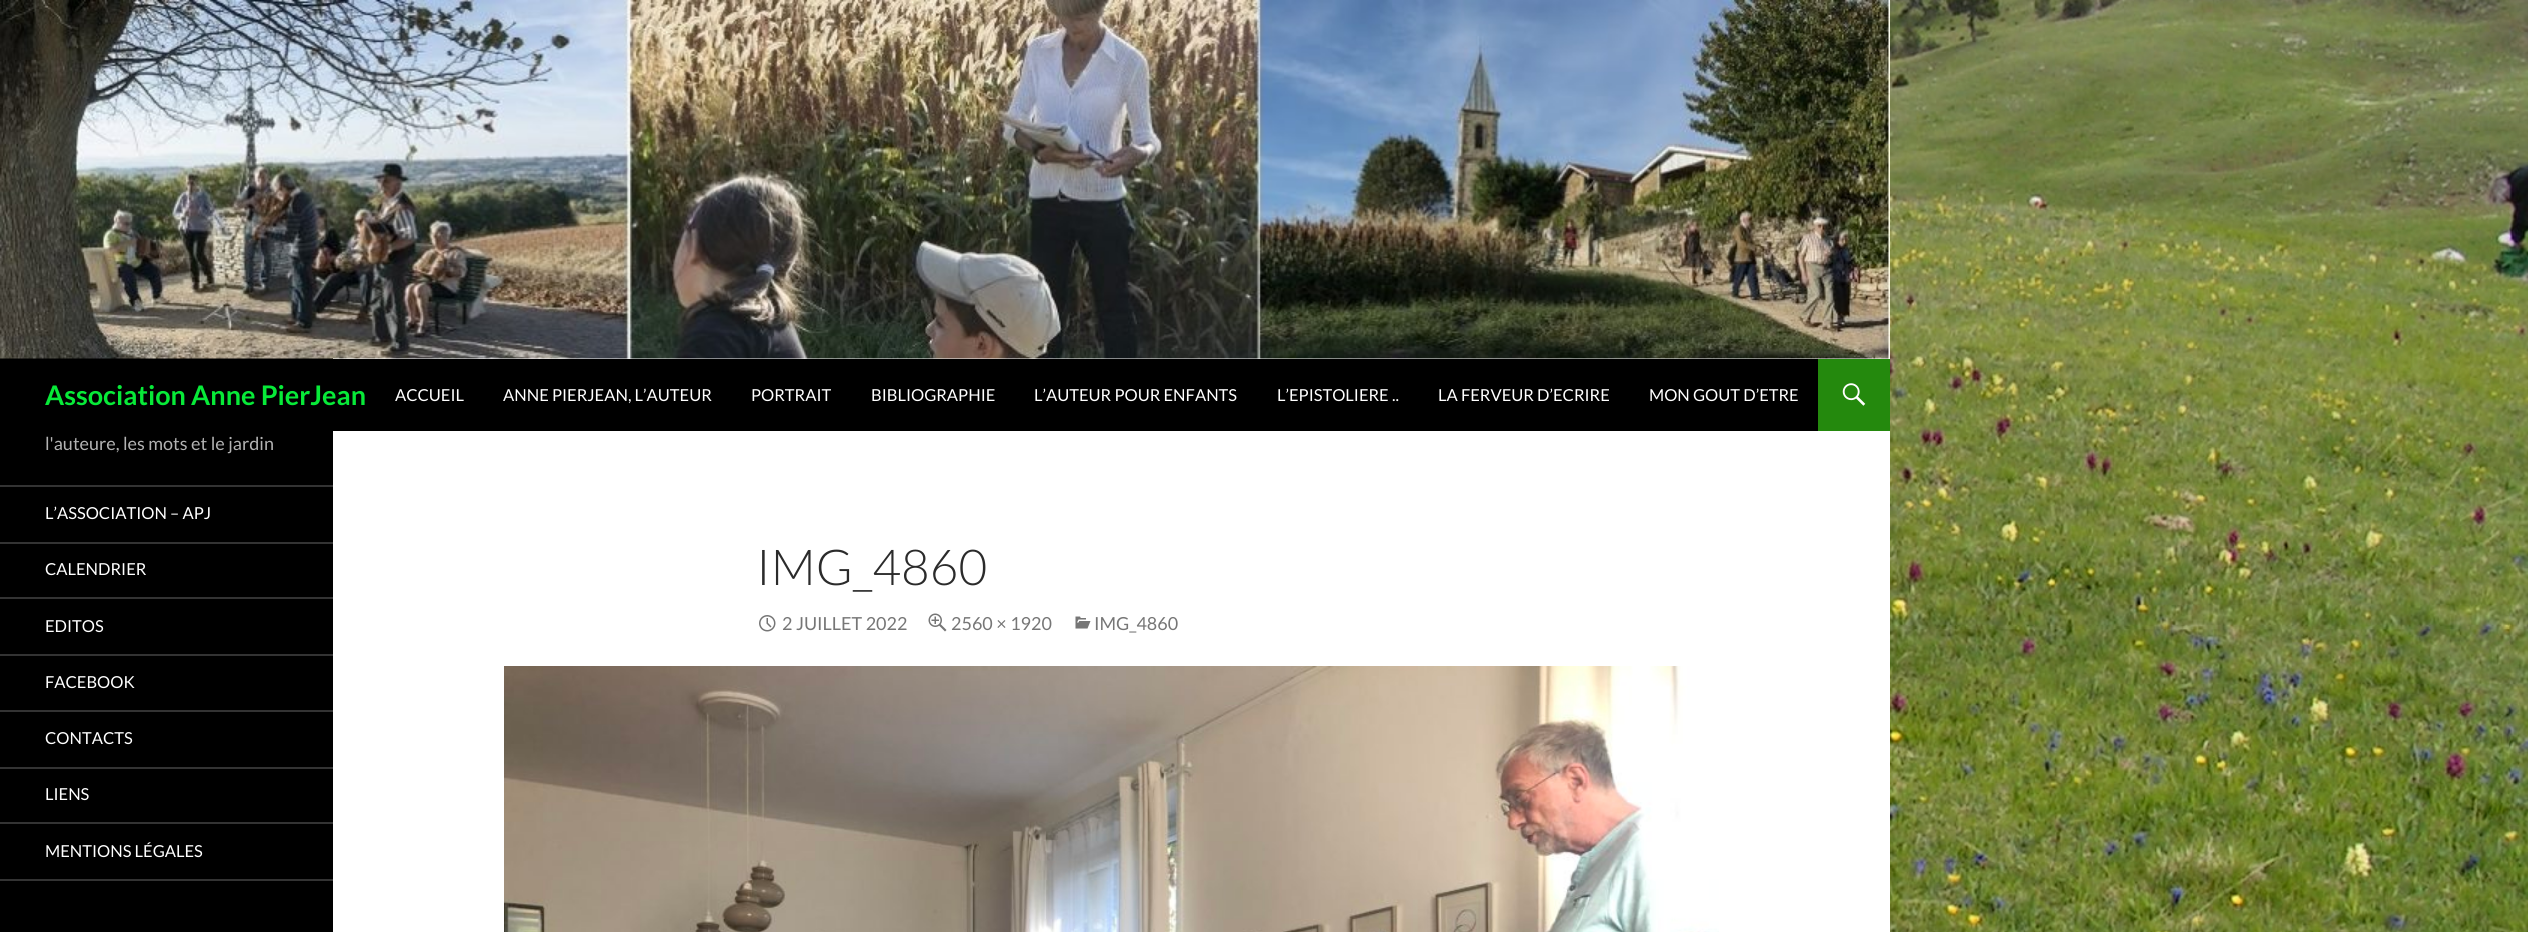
import math
import cairo


def use_color(cr, r, g, b):
  cr.set_source_rgb(r / 255, g / 255, b / 255)

def text(cr, x, y, s, family, size, color, bold=False, italic=False):
  cr.select_font_face(family, cairo.FONT_SLANT_ITALIC if italic else cairo.FONT_SLANT_NORMAL, cairo.FONT_WEIGHT_BOLD if bold else cairo.FONT_WEIGHT_NORMAL)
  cr.set_font_size(size)
  use_color(cr, *color)
  cr.move_to(x, y)
  cr.show_text(s)

def box(cr, x, y, w, h, *color):
  use_color(cr, *color)
  cr.rectangle(x, y, w, h)
  cr.fill()

def picture(cr, path, x, y, w, h):
  cr.save()
  cr.set_source_surface(cairo.ImageSurface.create_from_png(path), x, y)
  cr.rectangle(x, y, w, h)
  cr.fill()
  cr.restore()

def draw(cr):
  use_color(cr, 255, 255, 255)
  cr.paint()
  picture(cr, "img_01.png", 1890, 0, 638, 932)
  box(cr, 0, 358, 333, 574, 0, 0, 0)
  picture(cr, "img_02.png", 0, 0, 1890, 359)
  box(cr, 333, 359, 1485, 72, 0, 0, 0)
  box(cr, 1818, 359, 72, 72, 36, 137, 13)
  picture(cr, "img_03.png", 1842, 383, 24, 23)
  box(cr, 0, 879, 333, 2, 51, 51, 51)
  box(cr, 0, 485, 333, 2, 51, 51, 51)
  box(cr, 0, 542, 333, 2, 51, 51, 51)
  box(cr, 0, 597, 333, 2, 51, 51, 51)
  box(cr, 0, 654, 333, 2, 51, 51, 51)
  box(cr, 0, 710, 333, 2, 51, 51, 51)
  box(cr, 0, 767, 333, 2, 51, 51, 51)
  box(cr, 0, 822, 333, 2, 51, 51, 51)
  picture(cr, "img_04.png", 759, 615, 17, 17)
  picture(cr, "img_05.png", 928, 613, 19, 19)
  picture(cr, "img_06.png", 1075, 616, 16, 13)
  picture(cr, "img_07.png", 504, 666, 1215, 266)
  text(cr, 45, 405, "Association Anne PierJean", "Lato", 27, (7, 234, 56), bold=True)
  text(cr, 395, 401, "ACCUEIL", "Lato", 16.5, (255, 255, 255))
  text(cr, 503, 401, "ANNE PIERJEAN, L’AUTEUR", "Lato", 16.5, (255, 255, 255))
  text(cr, 751, 401, "PORTRAIT", "Lato", 16.5, (255, 255, 255))
  text(cr, 871, 401, "BIBLIOGRAPHIE", "Lato", 16.5, (255, 255, 255))
  text(cr, 1034, 401, "L’AUTEUR POUR ENFANTS", "Lato", 16.5, (255, 255, 255))
  text(cr, 1277, 401, "L’EPISTOLIERE ..", "Lato", 16.5, (255, 255, 255))
  text(cr, 1438, 401, "LA FERVEUR D’ECRIRE", "Lato", 16.5, (255, 255, 255))
  text(cr, 1649, 401, "MON GOUT D’ETRE", "Lato", 16.5, (255, 255, 255))
  text(cr, 45, 450, "l'auteure, les mots et le jardin", "Lato", 18, (179, 179, 179))
  text(cr, 45, 519, "L’ASSOCIATION – APJ", "Lato", 16.5, (255, 255, 255))
  text(cr, 45, 575, "CALENDRIER", "Lato", 16.5, (255, 255, 255))
  text(cr, 45, 632, "EDITOS", "Lato", 16.5, (255, 255, 255))
  text(cr, 45, 688, "FACEBOOK", "Lato", 16.5, (255, 255, 255))
  text(cr, 45, 744, "CONTACTS", "Lato", 16.5, (255, 255, 255))
  text(cr, 45, 800, "LIENS", "Lato", 16.5, (255, 255, 255))
  text(cr, 45, 857, "MENTIONS LÉGALES", "Lato", 16.5, (255, 255, 255))
  text(cr, 756, 585, "IMG_4860", "Lato Light", 49.5, (43, 43, 43))
  text(cr, 782, 630, "2 JUILLET 2022", "Lato", 18, (118, 118, 118))
  text(cr, 951, 630, "2560 × 1920", "Lato", 18, (118, 118, 118))
  text(cr, 1094, 630, "IMG_4860", "Lato", 18, (118, 118, 118))


surface = cairo.ImageSurface(cairo.FORMAT_RGB24, 2528, 932)
cr = cairo.Context(surface)
options = cairo.FontOptions()
options.set_hint_metrics(cairo.HINT_METRICS_OFF)
options.set_hint_style(cairo.HINT_STYLE_NONE)
cr.set_font_options(options)
cr.set_miter_limit(4)
draw(cr)
surface.write_to_png("out.png")
